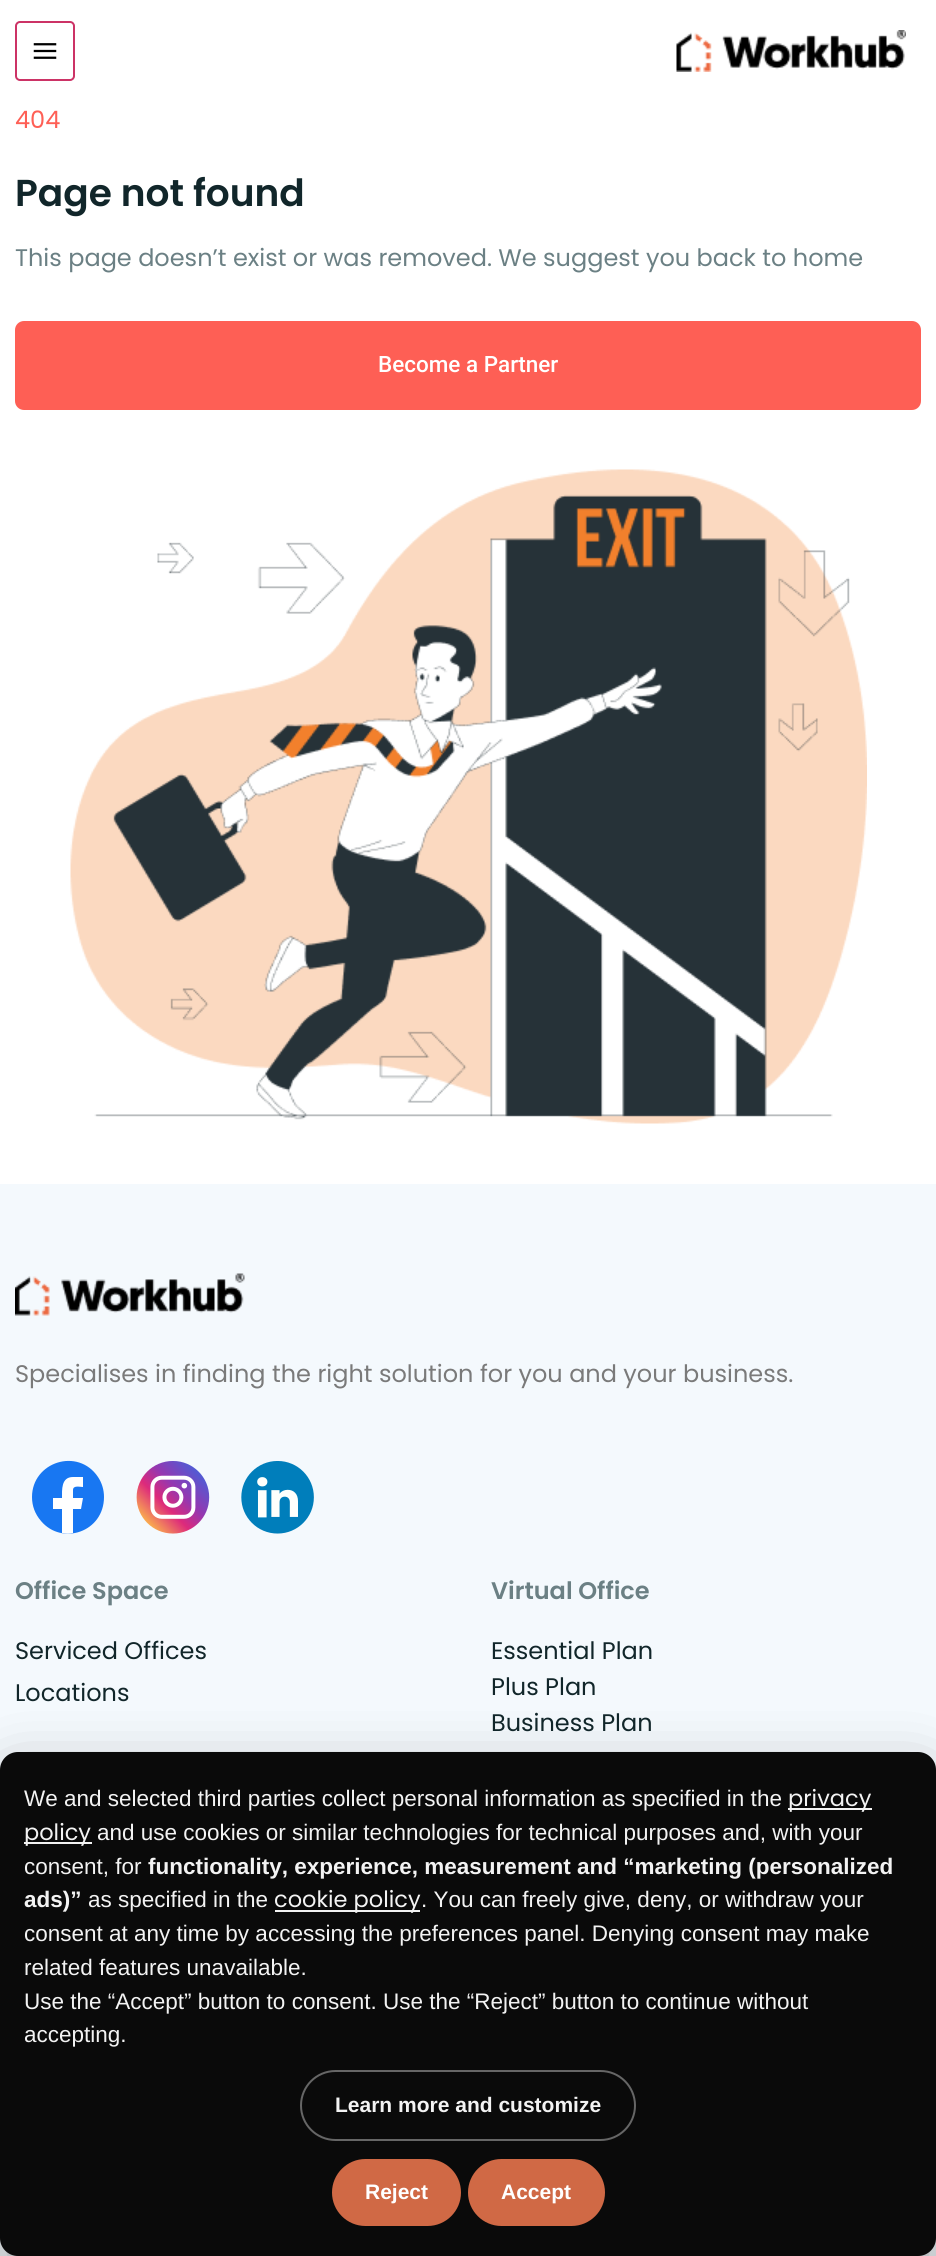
import math
import cairo


def use_color(cr, r, g, b):
  cr.set_source_rgb(r / 255, g / 255, b / 255)

def text(cr, x, y, s, family, size, color, bold=False, italic=False):
  cr.select_font_face(family, cairo.FONT_SLANT_ITALIC if italic else cairo.FONT_SLANT_NORMAL, cairo.FONT_WEIGHT_BOLD if bold else cairo.FONT_WEIGHT_NORMAL)
  cr.set_font_size(size)
  use_color(cr, *color)
  cr.move_to(x, y)
  cr.show_text(s)

def box(cr, x, y, w, h, *color):
  use_color(cr, *color)
  cr.rectangle(x, y, w, h)
  cr.fill()

def round_rect(cr, x, y, w, h, r):
  cr.new_sub_path()
  for i, (u, v) in enumerate([(x + w - r, y + h - r), (x + r, y + h - r), (x + r, y + r), (x + w - r, y + r)]):
    cr.arc(u, v, r, i * math.pi / 2, (i + 1) * math.pi / 2)
  cr.close_path()

def shadow(cr, x, y, w, h, r, blur, alpha):
  cr.push_group_with_content(cairo.CONTENT_ALPHA)
  cr.set_operator(cairo.OPERATOR_SOURCE)
  for i in range(15, -16, -2):
    e = blur * i / 6
    if min(w, h) + 2 * e > 0:
      cr.set_source_rgba(0, 0, 0, alpha * math.erfc((i - 1) / 8.5) / 2)
      round_rect(cr, x - e, y - e, w + 2 * e, h + 2 * e, max(0, min(r + e + blur * .6, min(w, h) / 2 + e)))
      cr.fill()
  cr.mask(cr.pop_group())

def picture(cr, path, x, y, w, h):
  cr.save()
  cr.set_source_surface(cairo.ImageSurface.create_from_png(path), x, y)
  cr.rectangle(x, y, w, h)
  cr.fill()
  cr.restore()

def draw(cr):
  use_color(cr, 255, 255, 255)
  cr.paint()
  round_rect(cr, 16, 22, 58, 58, 4)
  use_color(cr, 204, 51, 102)
  cr.stroke()
  picture(cr, "img_01.png", 33, 43, 24, 16)
  picture(cr, "img_02.png", 676, 30, 230, 42)
  use_color(cr, 254, 95, 85)
  round_rect(cr, 16.5, 322.5, 903, 86, 7.5)
  cr.fill_preserve()
  cr.set_line_width(3)
  cr.stroke()
  picture(cr, "img_03.png", 70, 469, 797, 655)
  box(cr, 0, 1184, 936, 1072, 244, 249, 253)
  picture(cr, "img_04.png", 15, 1273, 230, 43)
  use_color(cr, 24, 119, 242)
  cr.new_path()
  cr.move_to(104, 1497)
  cr.curve_to(104, 1532, 62, 1546, 41, 1521)
  cr.curve_to(35, 1514, 32, 1506, 32, 1497)
  cr.curve_to(32, 1462, 78, 1447, 98, 1477)
  cr.curve_to(102, 1483, 104, 1490, 104, 1497)
  cr.close_path()
  cr.fill()
  use_color(cr, 255, 255, 255)
  cr.new_path()
  cr.move_to(73, 1490)
  cr.line_to(73, 1498)
  cr.line_to(83, 1498)
  cr.line_to(81, 1509)
  cr.line_to(73, 1509)
  cr.line_to(73, 1533)
  cr.curve_to(70, 1534, 66, 1534, 62, 1533)
  cr.line_to(62, 1509)
  cr.line_to(53, 1509)
  cr.line_to(53, 1498)
  cr.line_to(62, 1498)
  cr.curve_to(62, 1490, 61, 1477, 73, 1477)
  cr.line_to(83, 1477)
  cr.line_to(83, 1487)
  cr.curve_to(80, 1487, 73, 1485, 73, 1490)
  cr.close_path()
  cr.fill()
  picture(cr, "img_05.png", 136, 1461, 74, 73)
  picture(cr, "img_06.png", 241, 1461, 73, 73)
  use_color(cr, 0, 0, 0)
  shadow(cr, 0, 1776, 936, 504, 18, 30, 0.35)
  use_color(cr, 128, 128, 128)
  shadow(cr, 831, 2145, 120, 90, 3, 4, 1)
  use_color(cr, 10, 10, 10)
  round_rect(cr, 0, 1752, 936, 504, 18)
  cr.fill()
  box(cr, 788, 1808, 84, 2, 243, 243, 243)
  box(cr, 24, 1842, 68, 2, 243, 243, 243)
  box(cr, 275, 1910, 145, 2, 243, 243, 243)
  round_rect(cr, 301, 2071, 334, 69, 34.5)
  use_color(cr, 102, 102, 102)
  cr.set_line_width(2)
  cr.stroke()
  use_color(cr, 208, 105, 69)
  round_rect(cr, 332, 2159, 129, 67, 33.5)
  cr.fill()
  round_rect(cr, 468, 2159, 137, 67, 33.5)
  cr.fill()
  text(cr, 15, 128, "404", "Poppins", 24, (254, 95, 85))
  text(cr, 15, 206, "Page not found", "Poppins SemiBold", 37.5, (17, 38, 42))
  text(cr, 15, 266, "This page doesn’t exist or was removed. We suggest you back to home", "Poppins", 24, (107, 128, 132))
  text(cr, 378, 372, "Become a Partner", "Roboto Medium", 22.5, (255, 255, 255))
  text(cr, 15, 1382, "Specialises in finding the right solution for you and your business.", "Poppins", 24, (122, 122, 122))
  text(cr, 15, 1599, "Office Space", "Poppins SemiBold", 24, (107, 128, 132))
  text(cr, 15, 1659, "Serviced Offices", "Poppins", 24, (17, 38, 42))
  text(cr, 15, 1701, "Locations", "Poppins", 24, (17, 38, 42))
  text(cr, 491, 1599, "Virtual Office", "Poppins SemiBold", 24, (107, 128, 132))
  text(cr, 491, 1659, "Essential Plan", "Poppins", 24, (17, 38, 42))
  text(cr, 491, 1695, "Plus Plan", "Poppins", 24, (17, 38, 42))
  text(cr, 491, 1731, "Business Plan", "Poppins", 24, (17, 38, 42))
  text(cr, 24, 1806, "We and selected third parties collect personal information as specified in the", "Liberation Sans", 22.5, (243, 243, 243))
  text(cr, 788, 1806, "privacy", "Poppins", 22.5, (243, 243, 243))
  text(cr, 24, 1840, "policy", "Poppins", 22.5, (243, 243, 243))
  text(cr, 97, 1840, "and use cookies or similar technologies for technical purposes and, with your", "Liberation Sans", 22.5, (243, 243, 243))
  text(cr, 24, 1874, "consent, for", "Liberation Sans", 22.5, (243, 243, 243))
  text(cr, 148, 1874, "functionality, experience, measurement and “marketing (personalized", "Liberation Sans", 22.5, (243, 243, 243), bold=True)
  text(cr, 24, 1907, "ads)”", "Liberation Sans", 22.5, (243, 243, 243), bold=True)
  text(cr, 88, 1907, "as specified in the", "Liberation Sans", 22.5, (243, 243, 243))
  text(cr, 274, 1907, "cookie policy", "Poppins", 22.5, (243, 243, 243))
  text(cr, 421, 1907, ". You can freely give, deny, or withdraw your", "Liberation Sans", 22.5, (243, 243, 243))
  text(cr, 24, 1941, "consent at any time by accessing the preferences panel. Denying consent may make", "Liberation Sans", 22.5, (243, 243, 243))
  text(cr, 24, 1975, "related features unavailable.", "Liberation Sans", 22.5, (243, 243, 243))
  text(cr, 24, 2009, "Use the “Accept” button to consent. Use the “Reject” button to continue without", "Liberation Sans", 22.5, (243, 243, 243))
  text(cr, 24, 2042, "accepting.", "Liberation Sans", 22.5, (243, 243, 243))
  text(cr, 335, 2112, "Learn more and customize", "Liberation Sans", 21, (243, 243, 243), bold=True)
  text(cr, 365, 2199, "Reject", "Liberation Sans", 21, (255, 255, 255), bold=True)
  text(cr, 501, 2199, "Accept", "Liberation Sans", 21, (255, 255, 255), bold=True)


surface = cairo.ImageSurface(cairo.FORMAT_RGB24, 936, 2256)
cr = cairo.Context(surface)
options = cairo.FontOptions()
options.set_hint_metrics(cairo.HINT_METRICS_OFF)
options.set_hint_style(cairo.HINT_STYLE_NONE)
cr.set_font_options(options)
cr.set_miter_limit(4)
draw(cr)
surface.write_to_png("out.png")
